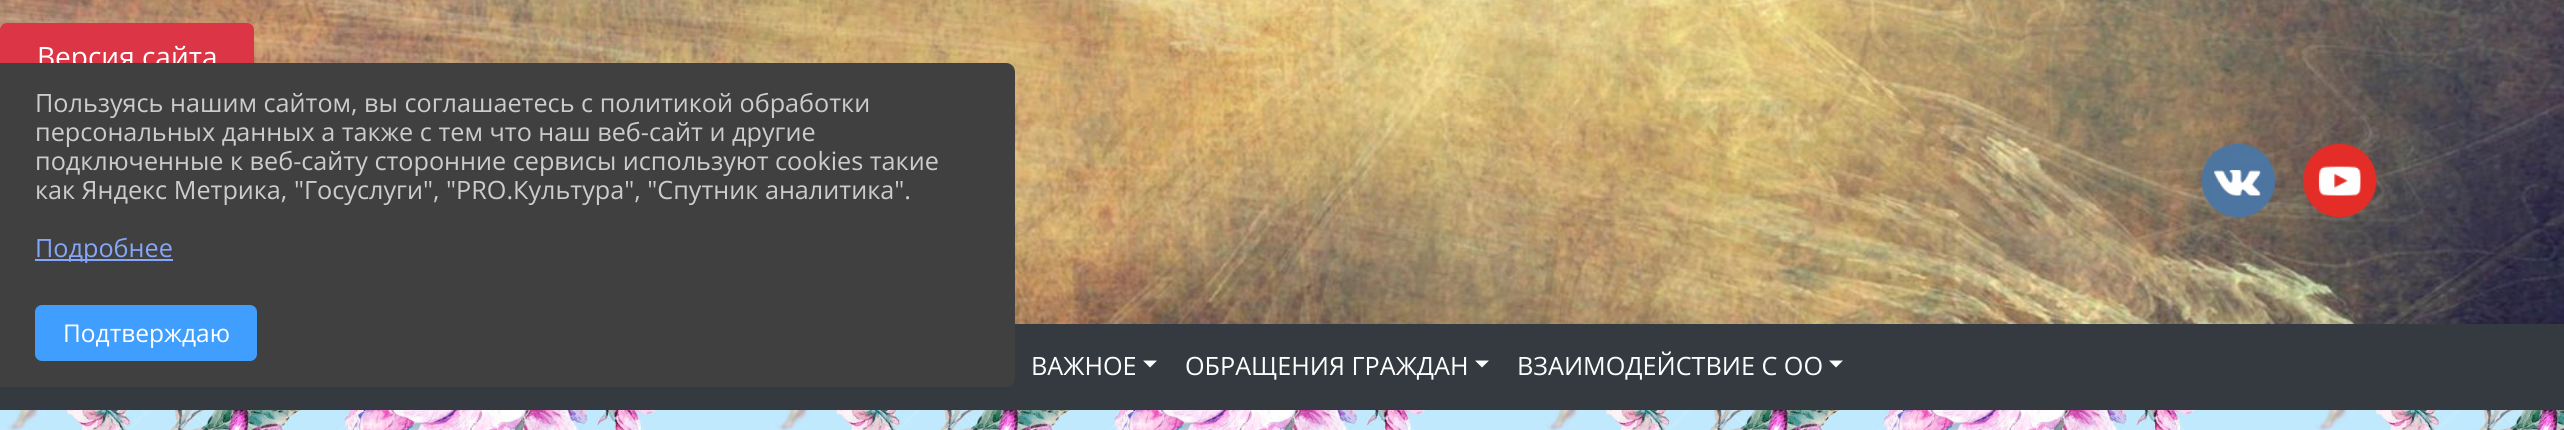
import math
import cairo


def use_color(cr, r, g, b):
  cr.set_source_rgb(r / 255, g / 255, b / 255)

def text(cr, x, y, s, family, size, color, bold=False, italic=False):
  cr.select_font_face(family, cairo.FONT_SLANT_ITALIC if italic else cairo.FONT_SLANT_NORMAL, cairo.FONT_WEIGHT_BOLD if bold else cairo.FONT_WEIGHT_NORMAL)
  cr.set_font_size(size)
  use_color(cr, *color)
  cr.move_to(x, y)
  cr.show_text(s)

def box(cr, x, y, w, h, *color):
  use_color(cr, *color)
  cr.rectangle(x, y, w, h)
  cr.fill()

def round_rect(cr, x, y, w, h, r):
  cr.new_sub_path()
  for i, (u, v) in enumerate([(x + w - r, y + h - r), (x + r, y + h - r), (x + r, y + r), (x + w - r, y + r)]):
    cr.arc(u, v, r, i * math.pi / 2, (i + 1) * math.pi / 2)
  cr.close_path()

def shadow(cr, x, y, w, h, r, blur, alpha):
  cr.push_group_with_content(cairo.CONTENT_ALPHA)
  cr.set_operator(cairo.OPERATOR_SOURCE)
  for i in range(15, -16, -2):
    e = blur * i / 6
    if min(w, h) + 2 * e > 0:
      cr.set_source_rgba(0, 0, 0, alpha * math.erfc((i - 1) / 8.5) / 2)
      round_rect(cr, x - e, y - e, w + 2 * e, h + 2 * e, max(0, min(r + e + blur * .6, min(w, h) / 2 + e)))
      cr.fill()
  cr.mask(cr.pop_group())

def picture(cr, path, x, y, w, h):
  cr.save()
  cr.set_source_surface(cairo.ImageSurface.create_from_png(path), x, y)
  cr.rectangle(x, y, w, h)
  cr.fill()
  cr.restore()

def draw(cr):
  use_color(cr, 255, 255, 255)
  cr.paint()
  picture(cr, "img_01.png", 0, 410, 2564, 20)
  picture(cr, "img_02.png", 0, 0, 2564, 324)
  use_color(cr, 0, 0, 0)
  shadow(cr, -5, 35, 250, 147, 5, 7, 0.35)
  use_color(cr, 220, 53, 69)
  round_rect(cr, 1, 24, 252, 148, 6)
  cr.fill_preserve()
  cr.stroke()
  picture(cr, "img_03.png", 2201, 143, 74, 75)
  picture(cr, "img_04.png", 2303, 143, 74, 75)
  box(cr, 0, 324, 2564, 86, 52, 58, 64)
  use_color(cr, 255, 255, 255)
  cr.new_path()
  cr.move_to(1143, 360.5)
  cr.line_to(1157, 360.5)
  cr.line_to(1150, 367.5)
  cr.close_path()
  cr.fill()
  cr.new_path()
  cr.move_to(1475, 360.5)
  cr.line_to(1489, 360.5)
  cr.line_to(1482, 367.5)
  cr.close_path()
  cr.fill()
  cr.new_path()
  cr.move_to(1829, 360.5)
  cr.line_to(1843, 360.5)
  cr.line_to(1836, 367.5)
  cr.close_path()
  cr.fill()
  text(cr, 37, 67, "Версия сайта", "Open Sans", 28, (255, 255, 255))
  text(cr, 1031, 375, "ВАЖНОЕ", "Open Sans", 25.2, (255, 255, 255))
  text(cr, 1185, 375, "ОБРАЩЕНИЯ ГРАЖДАН", "Open Sans", 25.2, (255, 255, 255))
  text(cr, 1517, 375, "ВЗАИМОДЕЙСТВИЕ С ОО", "Open Sans", 25.2, (255, 255, 255))
  use_color(cr, 64, 64, 64)
  cr.new_path()
  cr.move_to(0, 63)
  cr.line_to(1006, 63)
  cr.curve_to(1011, 63, 1015, 67, 1015, 72)
  cr.line_to(1015, 378)
  cr.curve_to(1015, 383, 1011, 387, 1006, 387)
  cr.line_to(0, 387)
  cr.close_path()
  cr.fill()
  text(cr, 35, 112, "Пользуясь нашим сайтом, вы соглашаетесь с политикой обработки", "Open Sans", 25.2, (204, 204, 204))
  text(cr, 35, 141, "персональных данных а также с тем что наш веб-сайт и другие", "Open Sans", 25.2, (204, 204, 204))
  text(cr, 35, 170, "подключенные к веб-сайту сторонние сервисы используют cookies такие", "Open Sans", 25.2, (204, 204, 204))
  text(cr, 35, 199, "как Яндекс Метрика, \"Госуслуги\", \"PRO.Культура\", \"Спутник аналитика\".", "Open Sans", 25.2, (204, 204, 204))
  box(cr, 35, 259, 138, 2, 133, 166, 249)
  text(cr, 35, 257, "Подробнее", "Open Sans", 25.2, (133, 166, 249))
  use_color(cr, 64, 158, 255)
  round_rect(cr, 36, 306, 220, 54, 6)
  cr.fill_preserve()
  cr.stroke()
  text(cr, 63, 342, "Подтверждаю", "Open Sans", 24.5, (255, 255, 255))


surface = cairo.ImageSurface(cairo.FORMAT_RGB24, 2564, 430)
cr = cairo.Context(surface)
options = cairo.FontOptions()
options.set_hint_metrics(cairo.HINT_METRICS_OFF)
options.set_hint_style(cairo.HINT_STYLE_NONE)
cr.set_font_options(options)
cr.set_miter_limit(4)
draw(cr)
surface.write_to_png("out.png")
